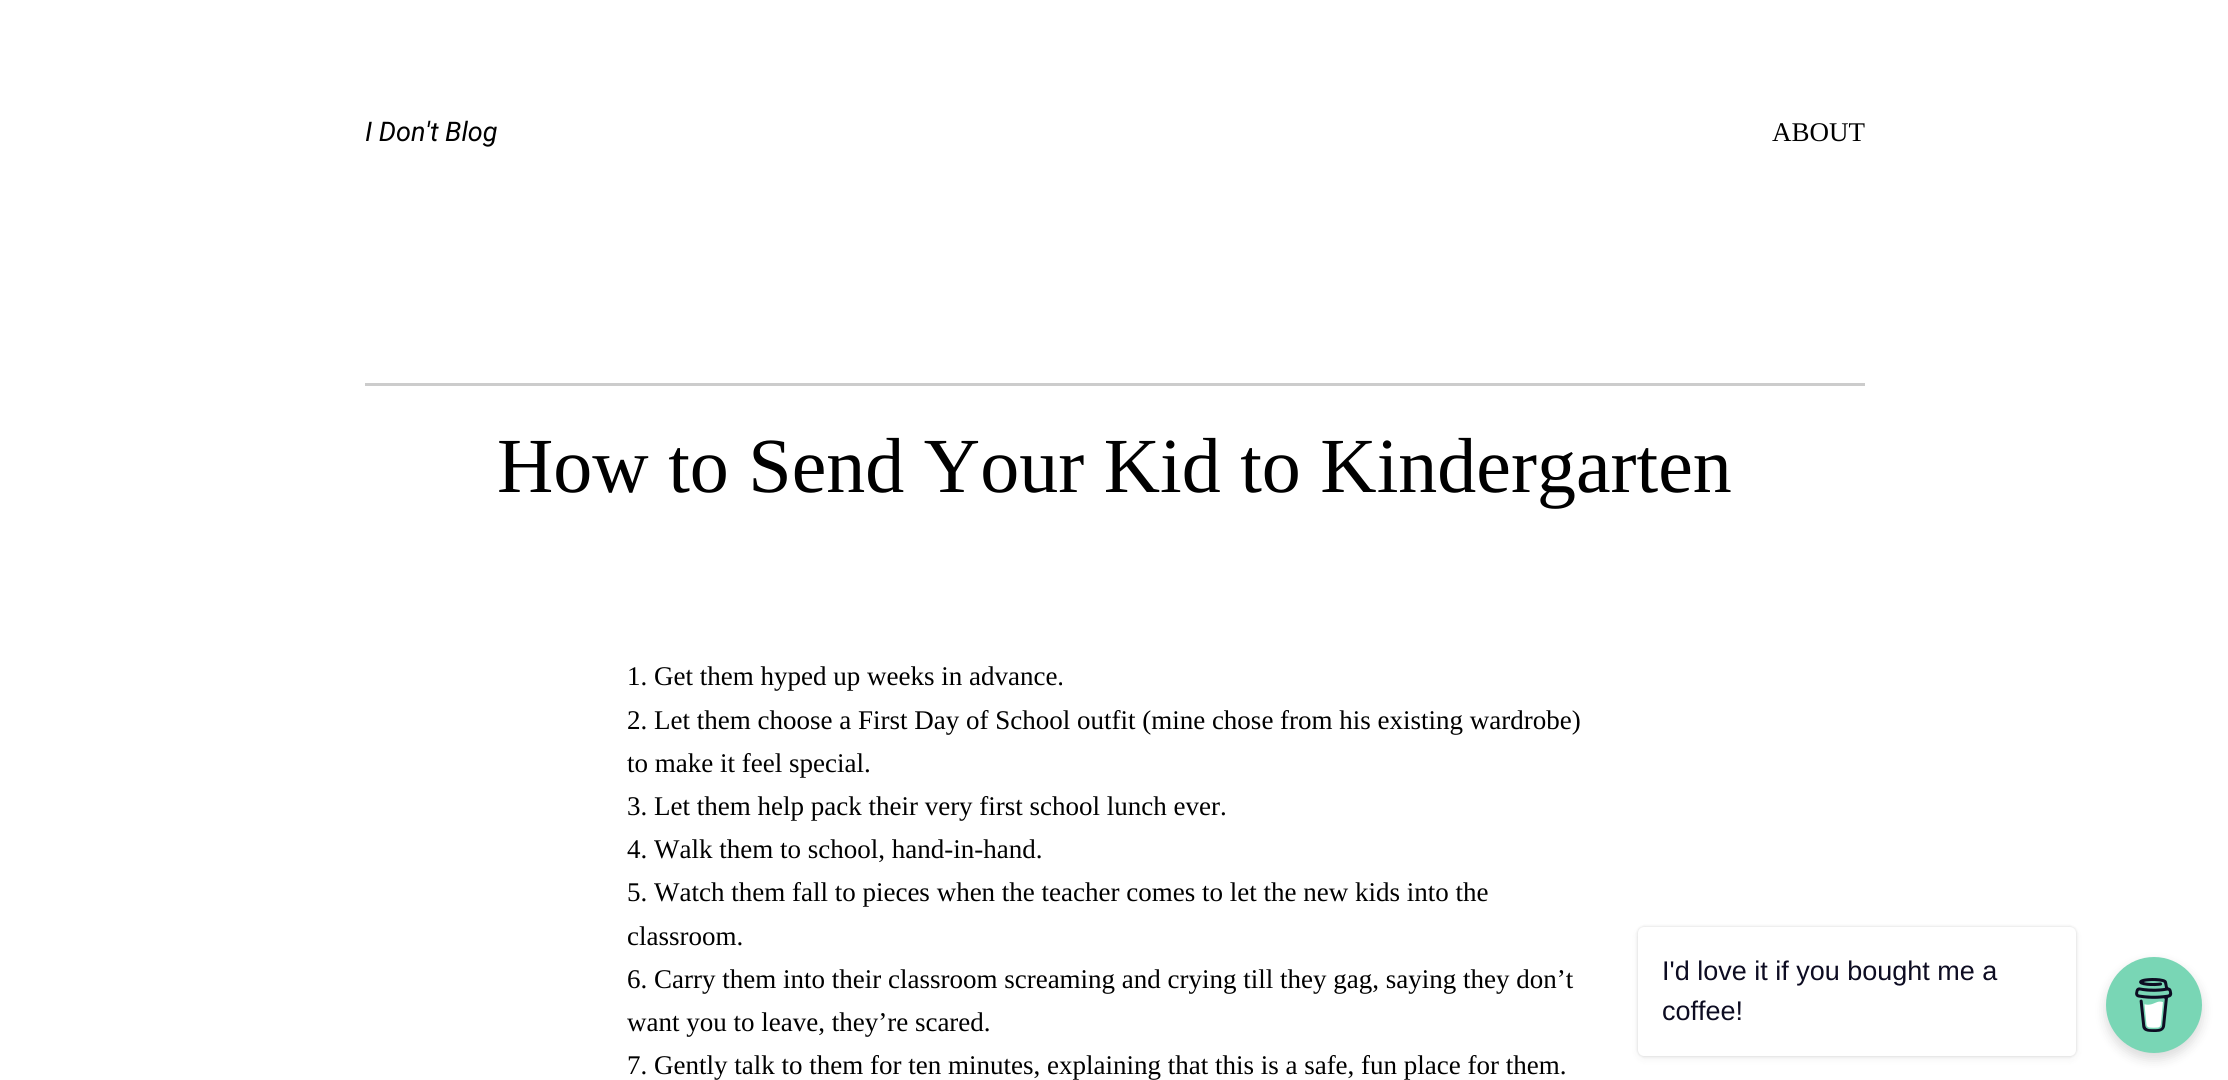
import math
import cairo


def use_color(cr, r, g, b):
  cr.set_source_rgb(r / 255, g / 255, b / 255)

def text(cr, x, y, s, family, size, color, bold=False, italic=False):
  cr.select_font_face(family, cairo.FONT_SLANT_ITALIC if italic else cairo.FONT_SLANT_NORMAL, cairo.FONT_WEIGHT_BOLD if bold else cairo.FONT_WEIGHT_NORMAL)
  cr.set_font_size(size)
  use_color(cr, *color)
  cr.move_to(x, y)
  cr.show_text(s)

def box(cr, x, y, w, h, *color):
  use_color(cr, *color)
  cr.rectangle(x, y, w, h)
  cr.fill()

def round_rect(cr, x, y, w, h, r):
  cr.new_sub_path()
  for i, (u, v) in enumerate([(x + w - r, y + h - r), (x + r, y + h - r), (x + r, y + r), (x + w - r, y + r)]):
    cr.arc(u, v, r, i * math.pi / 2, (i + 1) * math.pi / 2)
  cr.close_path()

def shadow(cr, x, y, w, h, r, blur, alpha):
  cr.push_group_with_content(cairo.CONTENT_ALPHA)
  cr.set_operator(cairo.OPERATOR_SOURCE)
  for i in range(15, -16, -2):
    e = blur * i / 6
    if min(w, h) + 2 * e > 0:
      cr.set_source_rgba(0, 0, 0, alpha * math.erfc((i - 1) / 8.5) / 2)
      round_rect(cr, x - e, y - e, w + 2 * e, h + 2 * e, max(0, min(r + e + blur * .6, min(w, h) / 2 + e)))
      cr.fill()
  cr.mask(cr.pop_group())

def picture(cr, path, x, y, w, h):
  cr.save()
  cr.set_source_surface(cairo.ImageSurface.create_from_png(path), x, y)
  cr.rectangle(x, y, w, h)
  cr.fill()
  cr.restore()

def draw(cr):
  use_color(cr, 255, 255, 255)
  cr.paint()
  box(cr, 365, 383, 1500, 3, 204, 204, 204)
  use_color(cr, 0, 0, 0)
  shadow(cr, 2106, 963, 96, 96, 48, 6, 0.15)
  use_color(cr, 121, 214, 181)
  cr.arc(2154, 1005, 48, 0, 2 * math.pi)
  cr.fill()
  picture(cr, "img_01.png", 2135, 978, 38, 54)
  use_color(cr, 0, 0, 0)
  shadow(cr, 1638, 927, 438, 129, 6, 1.5, 0.15)
  shadow(cr, 1638, 930, 438, 129, 6, 4, 0.05)
  use_color(cr, 255, 255, 255)
  round_rect(cr, 1638, 927, 438, 129, 6)
  cr.fill()
  text(cr, 365, 141, "I Don't Blog", "Roboto", 27, (0, 0, 0), italic=True)
  text(cr, 1772, 141, "ABOUT", "Liberation Serif", 27, (0, 0, 0))
  text(cr, 497, 492, "How to Send Your Kid to Kindergarten", "Liberation Serif", 78, (0, 0, 0))
  text(cr, 627, 685, "1. Get them hyped up weeks in advance.", "Liberation Serif", 27, (0, 0, 0))
  text(cr, 627, 729, "2. Let them choose a First Day of School outfit (mine chose from his existing wardrobe)", "Liberation Serif", 27, (0, 0, 0))
  text(cr, 627, 772, "to make it feel special.", "Liberation Serif", 27, (0, 0, 0))
  text(cr, 627, 815, "3. Let them help pack their very first school lunch ever.", "Liberation Serif", 27, (0, 0, 0))
  text(cr, 627, 858, "4. Walk them to school, hand-in-hand.", "Liberation Serif", 27, (0, 0, 0))
  text(cr, 627, 901, "5. Watch them fall to pieces when the teacher comes to let the new kids into the", "Liberation Serif", 27, (0, 0, 0))
  text(cr, 627, 945, "classroom.", "Liberation Serif", 27, (0, 0, 0))
  text(cr, 627, 988, "6. Carry them into their classroom screaming and crying till they gag, saying they don’t", "Liberation Serif", 27, (0, 0, 0))
  text(cr, 627, 1031, "want you to leave, they’re scared.", "Liberation Serif", 27, (0, 0, 0))
  text(cr, 627, 1074, "7. Gently talk to them for ten minutes, explaining that this is a safe, fun place for them.", "Liberation Serif", 27, (0, 0, 0))
  text(cr, 1662, 980, "I'd love it if you bought me a", "Liberation Sans", 27, (13, 12, 34))
  text(cr, 1662, 1020, "coffee!", "Liberation Sans", 27, (13, 12, 34))


surface = cairo.ImageSurface(cairo.FORMAT_RGB24, 2228, 1080)
cr = cairo.Context(surface)
options = cairo.FontOptions()
options.set_hint_metrics(cairo.HINT_METRICS_OFF)
options.set_hint_style(cairo.HINT_STYLE_NONE)
cr.set_font_options(options)
cr.set_miter_limit(4)
draw(cr)
surface.write_to_png("out.png")
